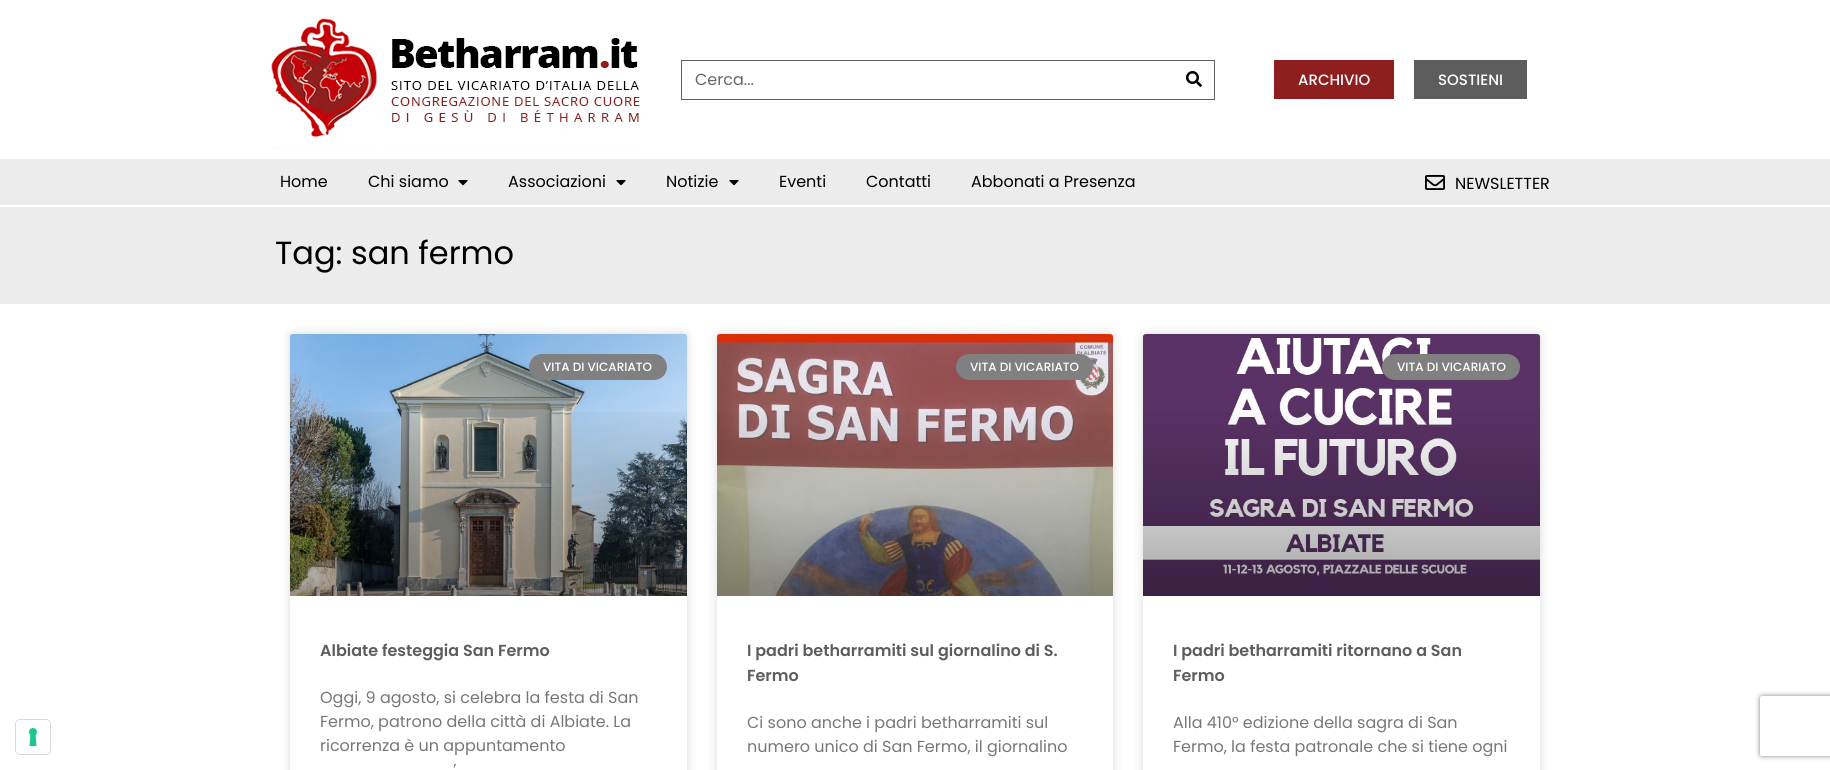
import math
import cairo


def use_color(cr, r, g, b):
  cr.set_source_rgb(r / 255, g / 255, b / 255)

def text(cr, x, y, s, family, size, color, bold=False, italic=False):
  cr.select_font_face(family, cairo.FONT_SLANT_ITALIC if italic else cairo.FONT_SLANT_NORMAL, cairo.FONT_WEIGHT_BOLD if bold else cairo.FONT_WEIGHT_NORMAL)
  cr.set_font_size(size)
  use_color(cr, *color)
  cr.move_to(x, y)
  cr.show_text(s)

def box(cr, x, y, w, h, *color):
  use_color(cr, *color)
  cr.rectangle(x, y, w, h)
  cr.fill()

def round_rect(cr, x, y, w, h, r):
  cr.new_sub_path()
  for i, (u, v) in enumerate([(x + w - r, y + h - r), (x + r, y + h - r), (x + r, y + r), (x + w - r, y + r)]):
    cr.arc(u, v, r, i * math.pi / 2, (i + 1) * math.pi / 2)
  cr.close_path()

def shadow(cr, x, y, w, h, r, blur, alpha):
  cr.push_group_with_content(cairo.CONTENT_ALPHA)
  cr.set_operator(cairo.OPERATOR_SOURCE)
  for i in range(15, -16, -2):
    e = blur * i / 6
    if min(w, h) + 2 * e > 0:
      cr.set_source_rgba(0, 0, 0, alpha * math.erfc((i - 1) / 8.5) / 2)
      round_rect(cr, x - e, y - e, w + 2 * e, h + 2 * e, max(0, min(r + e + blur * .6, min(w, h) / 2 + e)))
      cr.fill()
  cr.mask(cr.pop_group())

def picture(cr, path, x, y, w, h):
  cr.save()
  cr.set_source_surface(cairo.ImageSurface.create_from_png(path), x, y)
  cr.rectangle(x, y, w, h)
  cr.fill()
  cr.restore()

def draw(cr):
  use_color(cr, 255, 255, 255)
  cr.paint()
  picture(cr, "img_01.png", 270, 18, 370, 131)
  cr.rectangle(681.5, 60.5, 533, 39)
  use_color(cr, 93, 93, 93)
  cr.set_line_width(1)
  cr.stroke()
  picture(cr, "img_02.png", 1186, 71, 16, 16)
  box(cr, 1274, 60, 120, 39, 143, 31, 30)
  box(cr, 1414, 60, 113, 39, 93, 93, 93)
  box(cr, 0, 159, 1830, 46, 236, 236, 236)
  picture(cr, "img_03.png", 458, 180, 10, 6)
  picture(cr, "img_03.png", 616, 180, 10, 6)
  picture(cr, "img_03.png", 729, 180, 10, 6)
  picture(cr, "img_04.png", 1425, 175, 20, 15)
  round_rect(cr, 15.5, 719.5, 35, 35, 4.5)
  use_color(cr, 217, 217, 217)
  cr.stroke()
  use_color(cr, 255, 255, 255)
  round_rect(cr, 16, 720, 34, 34, 4)
  cr.fill()
  picture(cr, "img_05.png", 29, 728, 8, 18)
  box(cr, 0, 207, 1830, 97, 236, 236, 236)
  use_color(cr, 0, 0, 0)
  shadow(cr, 290, 334, 397, 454, 3, 5, 0.15)
  use_color(cr, 255, 255, 255)
  round_rect(cr, 290, 334, 397, 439, 3)
  cr.fill()
  picture(cr, "img_06.png", 290, 334, 397, 262)
  gradient = cairo.LinearGradient(489, 596, 489, 334)
  gradient.add_color_stop_rgba(0, 0, 0, 0, 0.35)
  gradient.add_color_stop_rgba(0.75, 0, 0, 0, 0)
  cr.set_source(gradient)
  cr.rectangle(290, 412, 397, 184)
  cr.fill()
  use_color(cr, 128, 128, 128)
  round_rect(cr, 529, 354, 138, 26, 13)
  cr.fill()
  use_color(cr, 0, 0, 0)
  shadow(cr, 717, 334, 396, 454, 3, 5, 0.15)
  use_color(cr, 255, 255, 255)
  round_rect(cr, 717, 334, 396, 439, 3)
  cr.fill()
  picture(cr, "img_07.png", 717, 334, 396, 262)
  gradient = cairo.LinearGradient(915, 596, 915, 334)
  gradient.add_color_stop_rgba(0, 0, 0, 0, 0.35)
  gradient.add_color_stop_rgba(0.75, 0, 0, 0, 0)
  cr.set_source(gradient)
  cr.rectangle(717, 412, 396, 184)
  cr.fill()
  use_color(cr, 128, 128, 128)
  round_rect(cr, 956, 354, 137, 26, 13)
  cr.fill()
  use_color(cr, 0, 0, 0)
  shadow(cr, 1143, 334, 397, 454, 3, 5, 0.15)
  use_color(cr, 255, 255, 255)
  round_rect(cr, 1143, 334, 397, 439, 3)
  cr.fill()
  picture(cr, "img_08.png", 1143, 334, 397, 262)
  gradient = cairo.LinearGradient(1342, 596, 1342, 334)
  gradient.add_color_stop_rgba(0, 0, 0, 0, 0.35)
  gradient.add_color_stop_rgba(0.75, 0, 0, 0, 0)
  cr.set_source(gradient)
  cr.rectangle(1143, 412, 397, 184)
  cr.fill()
  use_color(cr, 128, 128, 128)
  round_rect(cr, 1382, 354, 138, 26, 13)
  cr.fill()
  cr.save()
  cr.set_fill_rule(cairo.FILL_RULE_EVEN_ODD)
  cr.new_path()
  cr.move_to(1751, 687)
  cr.line_to(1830, 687)
  cr.line_to(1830, 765)
  cr.line_to(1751, 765)
  cr.close_path()
  cr.move_to(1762, 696)
  cr.line_to(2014, 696)
  cr.curve_to(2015, 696, 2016, 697, 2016, 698)
  cr.line_to(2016, 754)
  cr.curve_to(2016, 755, 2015, 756, 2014, 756)
  cr.line_to(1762, 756)
  cr.curve_to(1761, 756, 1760, 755, 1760, 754)
  cr.line_to(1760, 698)
  cr.curve_to(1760, 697, 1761, 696, 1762, 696)
  cr.close_path()
  cr.clip()
  use_color(cr, 128, 128, 128)
  shadow(cr, 1760, 696, 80, 60, 2, 2.5, 1)
  cr.restore()
  text(cr, 695, 85, "Cerca...", "Poppins", 16, (102, 102, 102))
  text(cr, 1298, 85, "ARCHIVIO", "Poppins Medium", 15, (255, 255, 255))
  text(cr, 1438, 85, "SOSTIENI", "Poppins Medium", 15, (255, 255, 255))
  text(cr, 280, 187, "Home", "Poppins", 16, (0, 0, 0))
  text(cr, 368, 187, "Chi siamo", "Poppins", 16, (0, 0, 0))
  text(cr, 508, 187, "Associazioni", "Poppins", 16, (0, 0, 0))
  text(cr, 666, 187, "Notizie", "Poppins", 16, (0, 0, 0))
  text(cr, 779, 187, "Eventi", "Poppins", 16, (0, 0, 0))
  text(cr, 866, 187, "Contatti", "Poppins", 16, (0, 0, 0))
  text(cr, 971, 187, "Abbonati a Presenza", "Poppins", 16, (0, 0, 0))
  text(cr, 1455, 189, "NEWSLETTER", "Poppins", 16, (0, 0, 0))
  text(cr, 275, 264, "Tag: san fermo", "Poppins", 32, (0, 0, 0))
  text(cr, 543, 371, "VITA DI VICARIATO", "Poppins Medium", 12, (255, 255, 255))
  text(cr, 320, 656, "Albiate festeggia San Fermo", "Poppins SemiBold", 16, (93, 93, 93))
  text(cr, 320, 703, "Oggi, 9 agosto, si celebra la festa di San", "Poppins", 16, (119, 119, 119))
  text(cr, 320, 727, "Fermo, patrono della città di Albiate. La", "Poppins", 16, (119, 119, 119))
  text(cr, 320, 751, "ricorrenza è un appuntamento", "Poppins", 16, (119, 119, 119))
  text(cr, 453, 775, "’", "Poppins", 16, (119, 119, 119))
  text(cr, 970, 371, "VITA DI VICARIATO", "Poppins Medium", 12, (255, 255, 255))
  text(cr, 747, 656, "I padri betharramiti sul giornalino di S.", "Poppins SemiBold", 16, (93, 93, 93))
  text(cr, 747, 681, "Fermo", "Poppins SemiBold", 16, (93, 93, 93))
  text(cr, 747, 728, "Ci sono anche i padri betharramiti sul", "Poppins", 16, (119, 119, 119))
  text(cr, 747, 752, "numero unico di San Fermo, il giornalino", "Poppins", 16, (119, 119, 119))
  text(cr, 1397, 371, "VITA DI VICARIATO", "Poppins Medium", 12, (255, 255, 255))
  text(cr, 1173, 656, "I padri betharramiti ritornano a San", "Poppins SemiBold", 16, (93, 93, 93))
  text(cr, 1173, 681, "Fermo", "Poppins SemiBold", 16, (93, 93, 93))
  text(cr, 1173, 728, "Alla 410° edizione della sagra di San", "Poppins", 16, (119, 119, 119))
  text(cr, 1173, 752, "Fermo, la festa patronale che si tiene ogni", "Poppins", 16, (119, 119, 119))


surface = cairo.ImageSurface(cairo.FORMAT_RGB24, 1830, 770)
cr = cairo.Context(surface)
options = cairo.FontOptions()
options.set_hint_metrics(cairo.HINT_METRICS_OFF)
options.set_hint_style(cairo.HINT_STYLE_NONE)
cr.set_font_options(options)
cr.set_miter_limit(4)
draw(cr)
surface.write_to_png("out.png")
